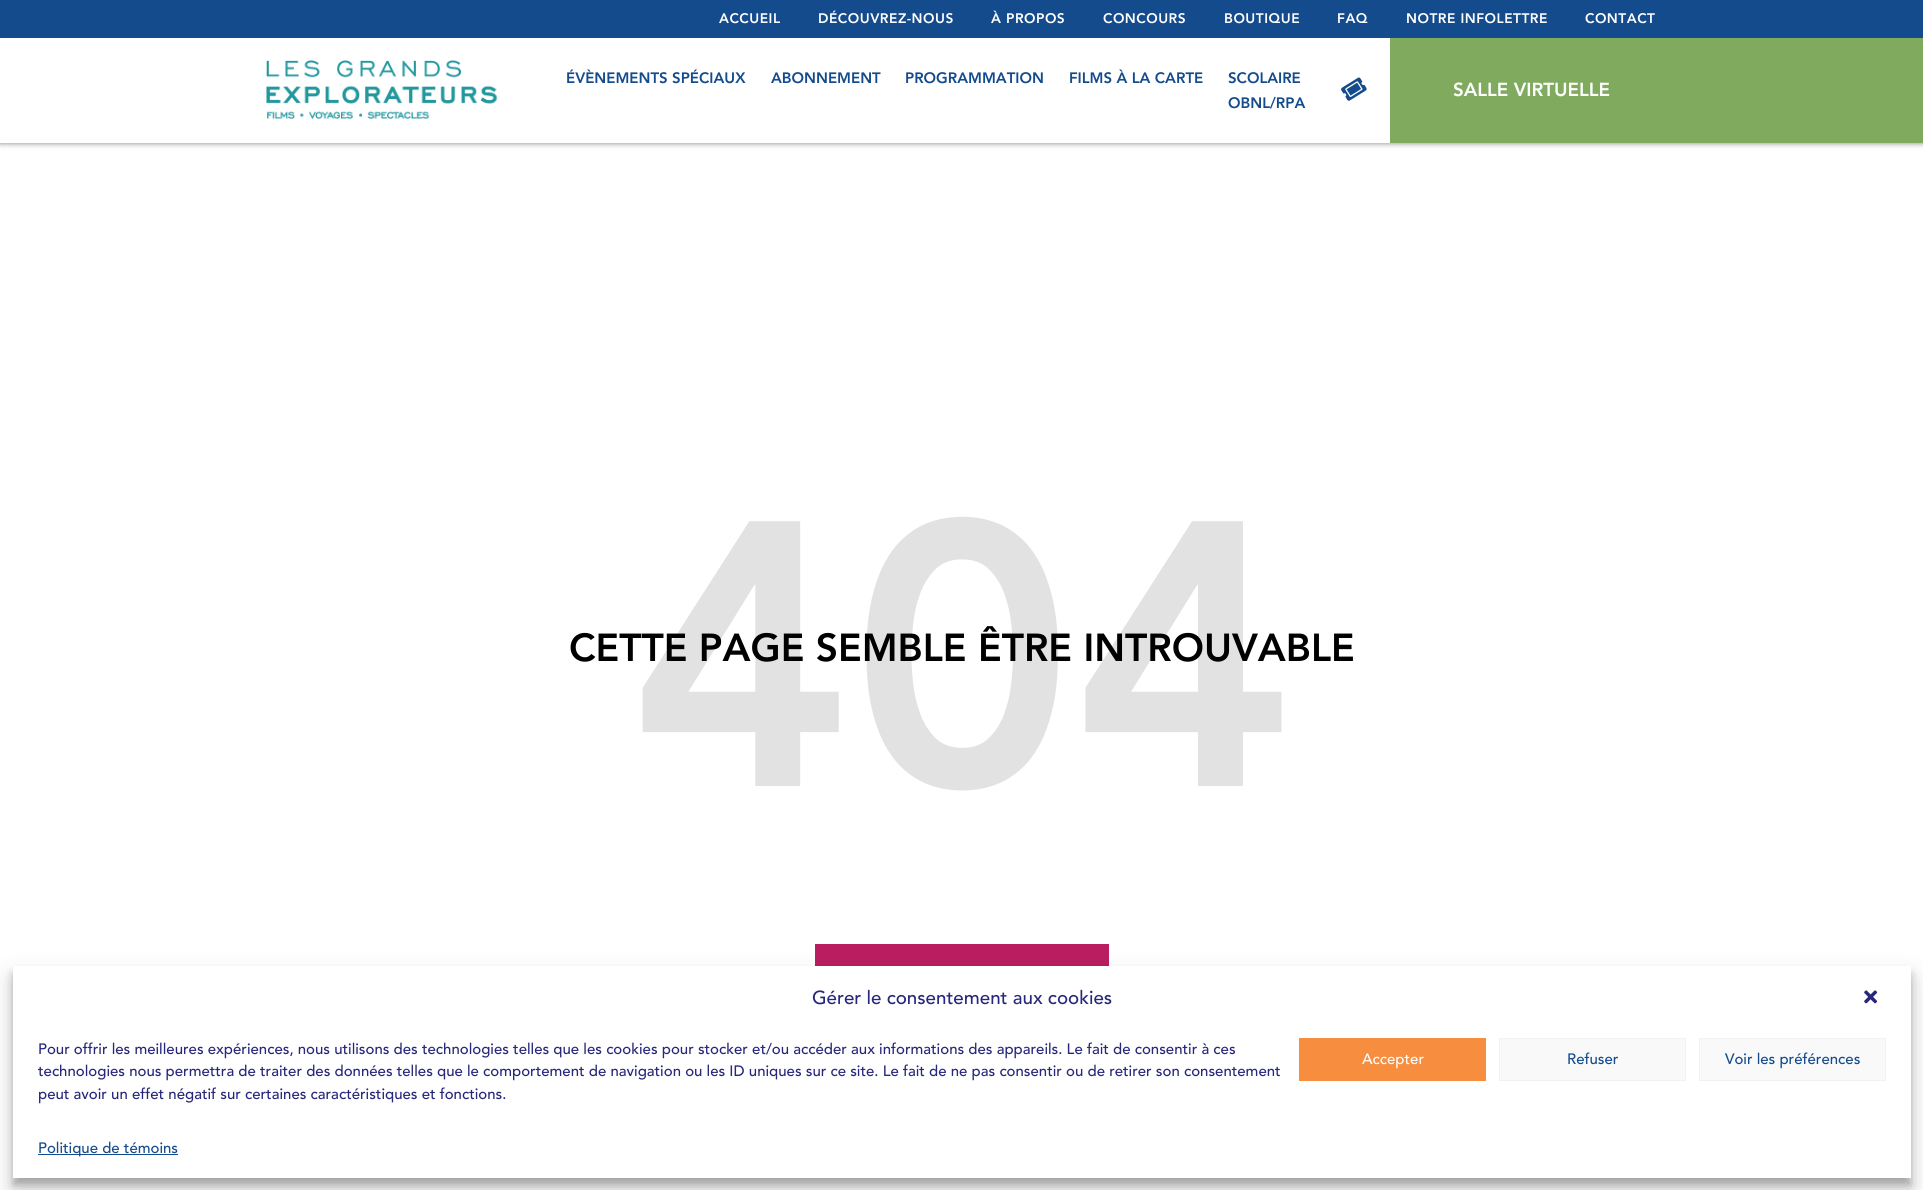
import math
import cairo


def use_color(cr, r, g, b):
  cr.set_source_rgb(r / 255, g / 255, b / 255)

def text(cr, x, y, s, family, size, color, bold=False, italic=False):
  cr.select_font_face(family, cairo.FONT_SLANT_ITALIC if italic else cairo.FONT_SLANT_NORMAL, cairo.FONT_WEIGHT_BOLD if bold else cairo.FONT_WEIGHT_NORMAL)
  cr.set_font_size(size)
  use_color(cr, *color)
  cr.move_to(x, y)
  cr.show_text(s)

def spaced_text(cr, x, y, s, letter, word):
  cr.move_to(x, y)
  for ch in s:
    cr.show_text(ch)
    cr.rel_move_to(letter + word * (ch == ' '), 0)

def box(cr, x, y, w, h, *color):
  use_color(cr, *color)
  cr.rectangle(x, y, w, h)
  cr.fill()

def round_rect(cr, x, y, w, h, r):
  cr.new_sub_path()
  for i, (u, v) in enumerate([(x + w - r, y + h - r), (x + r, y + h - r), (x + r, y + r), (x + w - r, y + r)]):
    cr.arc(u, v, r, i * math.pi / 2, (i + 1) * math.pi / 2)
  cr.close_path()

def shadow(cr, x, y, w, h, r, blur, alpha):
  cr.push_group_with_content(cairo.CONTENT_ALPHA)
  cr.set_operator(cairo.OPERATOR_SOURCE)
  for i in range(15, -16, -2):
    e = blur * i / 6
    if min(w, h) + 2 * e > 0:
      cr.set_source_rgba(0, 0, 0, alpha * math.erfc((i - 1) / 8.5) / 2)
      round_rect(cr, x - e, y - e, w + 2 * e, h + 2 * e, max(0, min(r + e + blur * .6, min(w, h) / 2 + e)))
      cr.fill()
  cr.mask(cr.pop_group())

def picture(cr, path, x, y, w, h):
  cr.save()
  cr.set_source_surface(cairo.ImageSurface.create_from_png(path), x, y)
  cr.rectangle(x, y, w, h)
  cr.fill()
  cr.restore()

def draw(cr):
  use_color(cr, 255, 255, 255)
  cr.paint()
  use_color(cr, 0, 0, 0)
  shadow(cr, 0, 38, 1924, 105, 0, 3, 0.5)
  box(cr, 0, 0, 1923, 38, 20, 75, 140)
  box(cr, 0, 38, 1390, 105, 255, 255, 255)
  box(cr, 1390, 38, 533, 105, 128, 171, 94)
  picture(cr, "img_01.png", 266, 60, 232, 59)
  picture(cr, "img_02.png", 1341, 77, 26, 24)
  box(cr, 815, 944, 294, 22, 186, 30, 96)
  use_color(cr, 0, 0, 0)
  shadow(cr, 13, 974, 1898, 211, 0, 4, 0.23)
  shadow(cr, 13, 979, 1898, 211, 0, 12.5, 0.19)
  box(cr, 13, 966, 1898, 212, 255, 255, 255)
  picture(cr, "img_03.png", 1864, 990, 14, 14)
  box(cr, 1299, 1038, 187, 43, 246, 141, 63)
  use_color(cr, 249, 249, 249)
  cr.rectangle(1499.5, 1038.5, 186, 42)
  cr.fill_preserve()
  use_color(cr, 242, 242, 242)
  cr.set_line_width(1)
  cr.stroke()
  use_color(cr, 249, 249, 249)
  cr.rectangle(1699.5, 1038.5, 186, 42)
  cr.fill_preserve()
  use_color(cr, 242, 242, 242)
  cr.stroke()
  box(cr, 38, 1154, 140, 1, 20, 75, 140)
  cr.select_font_face("Avenir Black")
  cr.set_font_size(13.75)
  use_color(cr, 255, 255, 255)
  spaced_text(cr, 719, 23, "ACCUEIL", 0.5, 0)
  spaced_text(cr, 818, 23, "DÉCOUVREZ-NOUS", 0.5, 0)
  spaced_text(cr, 991, 23, "À PROPOS", 0.5, 0)
  spaced_text(cr, 1103, 23, "CONCOURS", 0.5, 0)
  spaced_text(cr, 1224, 23, "BOUTIQUE", 0.5, 0)
  spaced_text(cr, 1337, 23, "FAQ", 0.5, 0)
  spaced_text(cr, 1406, 23, "NOTRE INFOLETTRE", 0.5, 0)
  spaced_text(cr, 1585, 23, "CONTACT", 0.5, 0)
  text(cr, 566, 83, "ÉVÈNEMENTS SPÉCIAUX", "Avenir Black", 15, (20, 75, 140))
  text(cr, 771, 83, "ABONNEMENT", "Avenir Black", 15, (20, 75, 140))
  text(cr, 905, 83, "PROGRAMMATION", "Avenir Black", 15, (20, 75, 140))
  text(cr, 1069, 83, "FILMS À LA CARTE", "Avenir Black", 15, (20, 75, 140))
  text(cr, 1228, 83, "SCOLAIRE", "Avenir Black", 15, (20, 75, 140))
  text(cr, 1228, 108, "OBNL/RPA", "Avenir Black", 15, (20, 75, 140))
  text(cr, 1453, 96, "SALLE VIRTUELLE", "Avenir Black", 18.75, (255, 255, 255))
  text(cr, 630, 786, "404", "Avenir Black", 374, (226, 226, 226))
  text(cr, 569, 661, "CETTE PAGE SEMBLE ÊTRE INTROUVABLE", "Avenir Black", 38.75, (0, 0, 0))
  text(cr, 812, 1004, "Gérer le consentement aux cookies", "Avenir Medium", 18.75, (39, 39, 123))
  text(cr, 38, 1054, "Pour offrir les meilleures expériences, nous utilisons des technologies telles que les cookies pour stocker et/ou accéder aux informations des appareils. Le fait de consentir à ces", "Avenir Medium", 15, (39, 39, 123))
  text(cr, 38, 1076, "technologies nous permettra de traiter des données telles que le comportement de navigation ou les ID uniques sur ce site. Le fait de ne pas consentir ou de retirer son consentement", "Avenir Medium", 15, (39, 39, 123))
  text(cr, 38, 1099, "peut avoir un effet négatif sur certaines caractéristiques et fonctions.", "Avenir Medium", 15, (39, 39, 123))
  text(cr, 1362, 1064, "Accepter", "Avenir Medium", 15, (255, 255, 255))
  text(cr, 1567, 1064, "Refuser", "Avenir Medium", 15, (20, 75, 140))
  text(cr, 1725, 1064, "Voir les préférences", "Avenir Medium", 15, (20, 75, 140))
  text(cr, 38, 1153, "Politique de témoins", "Avenir Medium", 15, (20, 75, 140))


surface = cairo.ImageSurface(cairo.FORMAT_RGB24, 1923, 1190)
cr = cairo.Context(surface)
options = cairo.FontOptions()
options.set_hint_metrics(cairo.HINT_METRICS_OFF)
options.set_hint_style(cairo.HINT_STYLE_NONE)
cr.set_font_options(options)
cr.set_miter_limit(4)
draw(cr)
surface.write_to_png("out.png")
